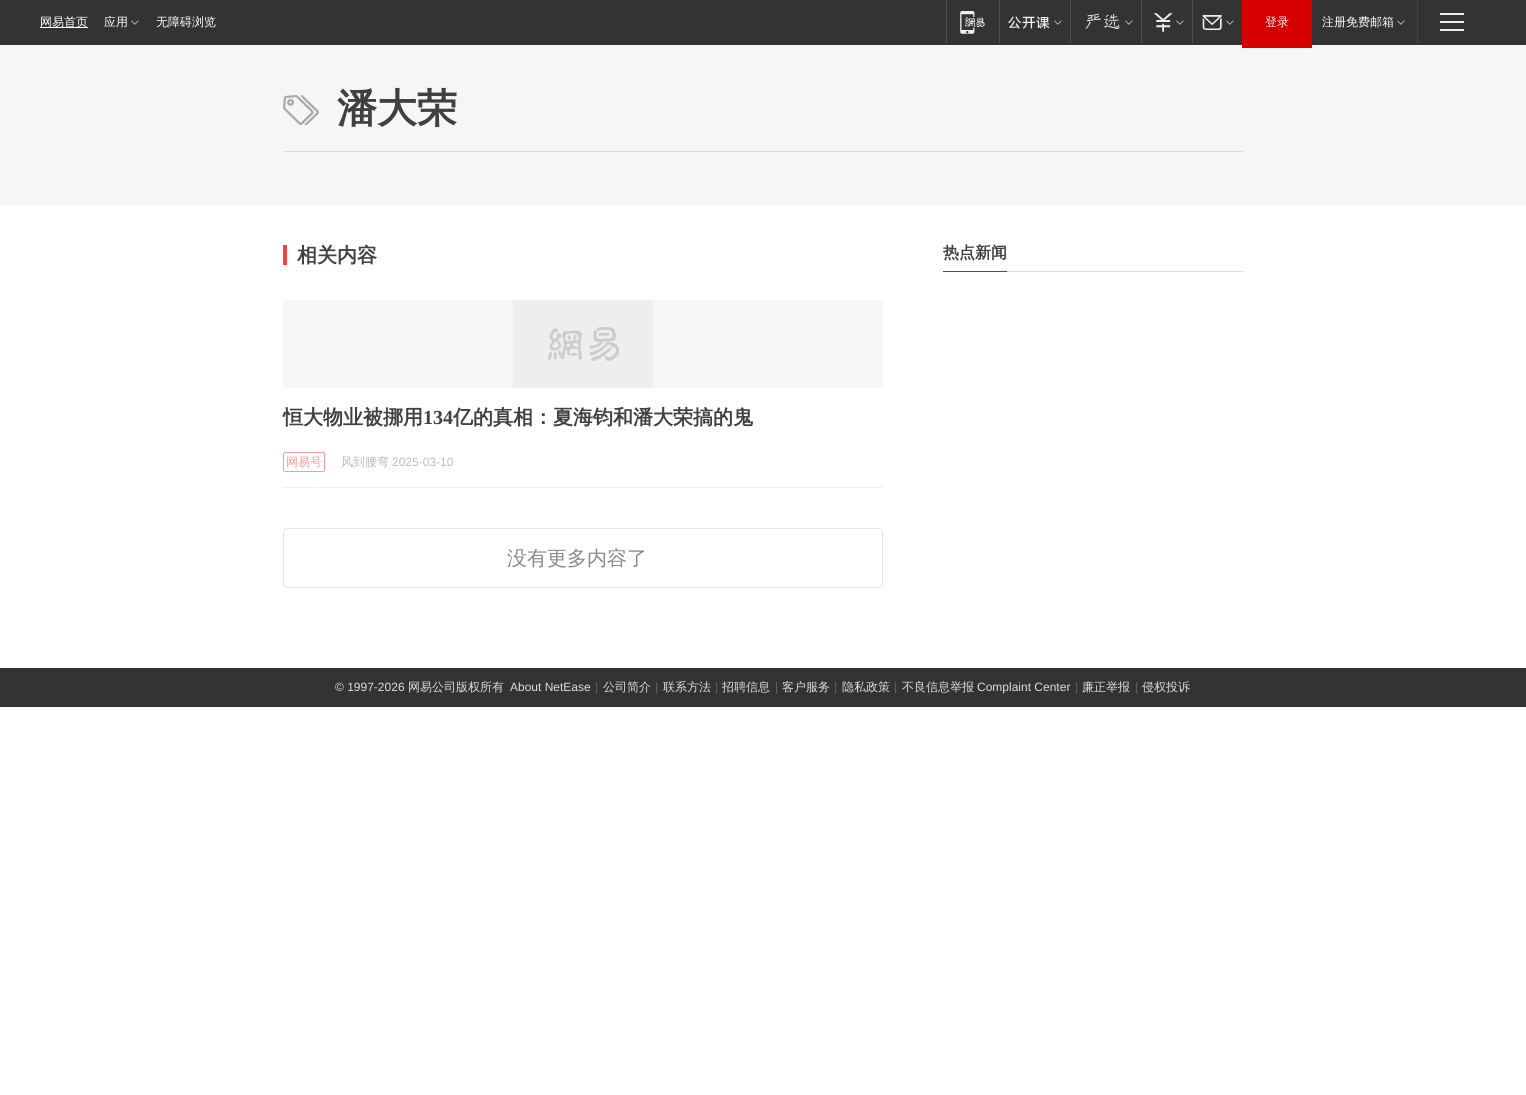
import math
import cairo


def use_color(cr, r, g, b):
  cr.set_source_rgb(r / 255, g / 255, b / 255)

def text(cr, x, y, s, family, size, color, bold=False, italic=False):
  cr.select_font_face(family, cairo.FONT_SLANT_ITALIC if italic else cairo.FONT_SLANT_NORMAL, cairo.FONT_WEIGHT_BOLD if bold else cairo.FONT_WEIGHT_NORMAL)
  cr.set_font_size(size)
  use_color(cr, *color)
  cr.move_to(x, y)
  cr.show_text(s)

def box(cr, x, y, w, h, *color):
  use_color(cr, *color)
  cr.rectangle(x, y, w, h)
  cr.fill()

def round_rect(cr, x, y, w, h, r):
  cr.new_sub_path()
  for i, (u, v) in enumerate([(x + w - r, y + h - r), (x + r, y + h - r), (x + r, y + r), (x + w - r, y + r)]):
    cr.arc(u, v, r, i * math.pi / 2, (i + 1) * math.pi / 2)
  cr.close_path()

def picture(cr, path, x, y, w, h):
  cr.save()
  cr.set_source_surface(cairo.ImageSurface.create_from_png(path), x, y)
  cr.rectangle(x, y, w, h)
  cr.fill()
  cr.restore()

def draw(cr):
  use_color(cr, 255, 255, 255)
  cr.paint()
  box(cr, 0, 0, 1526, 45, 51, 51, 51)
  box(cr, 40, 27, 48, 1, 255, 255, 255)
  picture(cr, "img_01.png", 131, 20, 8, 5)
  box(cr, 946, 0, 1, 43, 77, 77, 77)
  picture(cr, "img_02.png", 960, 11, 25, 23)
  box(cr, 999, 0, 1, 43, 77, 77, 77)
  picture(cr, "img_03.png", 1008, 16, 42, 13)
  picture(cr, "img_01.png", 1054, 20, 8, 5)
  box(cr, 1070, 0, 1, 43, 77, 77, 77)
  picture(cr, "img_04.png", 1085, 13, 35, 16)
  picture(cr, "img_01.png", 1125, 20, 8, 5)
  box(cr, 1141, 0, 1, 43, 77, 77, 77)
  picture(cr, "img_05.png", 1153, 13, 20, 19)
  picture(cr, "img_01.png", 1176, 20, 8, 5)
  box(cr, 1192, 0, 1, 43, 77, 77, 77)
  picture(cr, "img_06.png", 1202, 15, 20, 15)
  picture(cr, "img_01.png", 1226, 20, 8, 5)
  box(cr, 0, 45, 1526, 160, 246, 246, 246)
  box(cr, 1242, 0, 70, 48, 214, 0, 0)
  picture(cr, "img_01.png", 1397, 20, 8, 5)
  box(cr, 1417, 0, 1, 43, 68, 68, 68)
  box(cr, 1440, 13, 24, 2, 239, 239, 239)
  box(cr, 1440, 21, 24, 2, 239, 239, 239)
  box(cr, 1440, 29, 24, 2, 239, 239, 239)
  picture(cr, "img_07.png", 283, 95, 36, 30)
  box(cr, 283, 151, 960, 1, 221, 221, 221)
  box(cr, 283, 245, 4, 20, 243, 69, 64)
  box(cr, 283, 487, 600, 1, 240, 240, 240)
  box(cr, 283, 300, 600, 88, 246, 246, 246)
  picture(cr, "img_08.png", 513, 300, 140, 88)
  round_rect(cr, 283.5, 452.5, 41, 19, 1.5)
  use_color(cr, 255, 153, 153)
  cr.set_line_width(1)
  cr.stroke()
  round_rect(cr, 283.5, 528.5, 599, 59, 3.5)
  use_color(cr, 229, 229, 229)
  cr.stroke()
  box(cr, 1007, 271, 236, 1, 221, 221, 221)
  box(cr, 943, 271, 64, 1, 219, 16, 17)
  box(cr, 0, 668, 1526, 39, 51, 51, 51)
  text(cr, 40, 26, "网易首页", "WenQuanYi Zen Hei Medium", 12, (255, 255, 255))
  text(cr, 104, 26, "应用", "WenQuanYi Zen Hei Medium", 12, (255, 255, 255))
  text(cr, 156, 26, "无障碍浏览", "WenQuanYi Zen Hei Medium", 12, (255, 255, 255))
  text(cr, 1265, 26, "登录", "WenQuanYi Zen Hei Medium", 12, (255, 255, 255))
  text(cr, 1322, 26, "注册免费邮箱", "WenQuanYi Zen Hei Medium", 12, (255, 255, 255))
  text(cr, 337, 122, "潘大荣", "WenQuanYi Zen Hei", 40, (64, 64, 64), bold=True)
  text(cr, 297, 262, "相关内容", "WenQuanYi Zen Hei", 20, (64, 64, 64), bold=True)
  text(cr, 283, 424, "恒大物业被挪用", "WenQuanYi Zen Hei", 20, (64, 64, 64), bold=True)
  text(cr, 423, 424, "134", "Liberation Serif", 20, (64, 64, 64), bold=True)
  text(cr, 453, 424, "亿的真相：夏海钧和潘大荣搞的鬼", "WenQuanYi Zen Hei", 20, (64, 64, 64), bold=True)
  text(cr, 286, 466, "网易号", "WenQuanYi Zen Hei Medium", 12, (255, 153, 153))
  text(cr, 341, 466, "风到腰弯", "WenQuanYi Zen Hei Medium", 12, (187, 187, 187))
  text(cr, 392, 466, "2025-03-10", "Liberation Sans", 12, (187, 187, 187))
  text(cr, 507, 565, "没有更多内容了", "WenQuanYi Zen Hei Medium", 20, (136, 136, 136))
  text(cr, 943, 258, "热点新闻", "WenQuanYi Zen Hei", 16, (64, 64, 64), bold=True)
  text(cr, 335, 691, "© 1997-2026", "Liberation Sans", 12, (221, 221, 221))
  text(cr, 408, 691, "网易公司版权所有", "WenQuanYi Zen Hei Medium", 12, (221, 221, 221))
  text(cr, 510, 691, "About NetEase", "Liberation Sans", 12, (221, 221, 221))
  text(cr, 595, 691, "|", "Liberation Sans", 12, (97, 97, 97))
  text(cr, 603, 691, "公司简介", "WenQuanYi Zen Hei Medium", 12, (221, 221, 221))
  text(cr, 655, 691, "|", "Liberation Sans", 12, (97, 97, 97))
  text(cr, 663, 691, "联系方法", "WenQuanYi Zen Hei Medium", 12, (221, 221, 221))
  text(cr, 715, 691, "|", "Liberation Sans", 12, (97, 97, 97))
  text(cr, 722, 691, "招聘信息", "WenQuanYi Zen Hei Medium", 12, (221, 221, 221))
  text(cr, 775, 691, "|", "Liberation Sans", 12, (97, 97, 97))
  text(cr, 782, 691, "客户服务", "WenQuanYi Zen Hei Medium", 12, (221, 221, 221))
  text(cr, 834, 691, "|", "Liberation Sans", 12, (97, 97, 97))
  text(cr, 842, 691, "隐私政策", "WenQuanYi Zen Hei Medium", 12, (221, 221, 221))
  text(cr, 894, 691, "|", "Liberation Sans", 12, (97, 97, 97))
  text(cr, 902, 691, "不良信息举报", "WenQuanYi Zen Hei Medium", 12, (221, 221, 221))
  text(cr, 977, 691, "Complaint Center", "Liberation Sans", 12, (221, 221, 221))
  text(cr, 1075, 691, "|", "Liberation Sans", 12, (97, 97, 97))
  text(cr, 1082, 691, "廉正举报", "WenQuanYi Zen Hei Medium", 12, (221, 221, 221))
  text(cr, 1135, 691, "|", "Liberation Sans", 12, (97, 97, 97))
  text(cr, 1142, 691, "侵权投诉", "WenQuanYi Zen Hei Medium", 12, (221, 221, 221))


surface = cairo.ImageSurface(cairo.FORMAT_RGB24, 1526, 1095)
cr = cairo.Context(surface)
options = cairo.FontOptions()
options.set_hint_metrics(cairo.HINT_METRICS_OFF)
options.set_hint_style(cairo.HINT_STYLE_NONE)
cr.set_font_options(options)
cr.set_miter_limit(4)
draw(cr)
surface.write_to_png("out.png")
